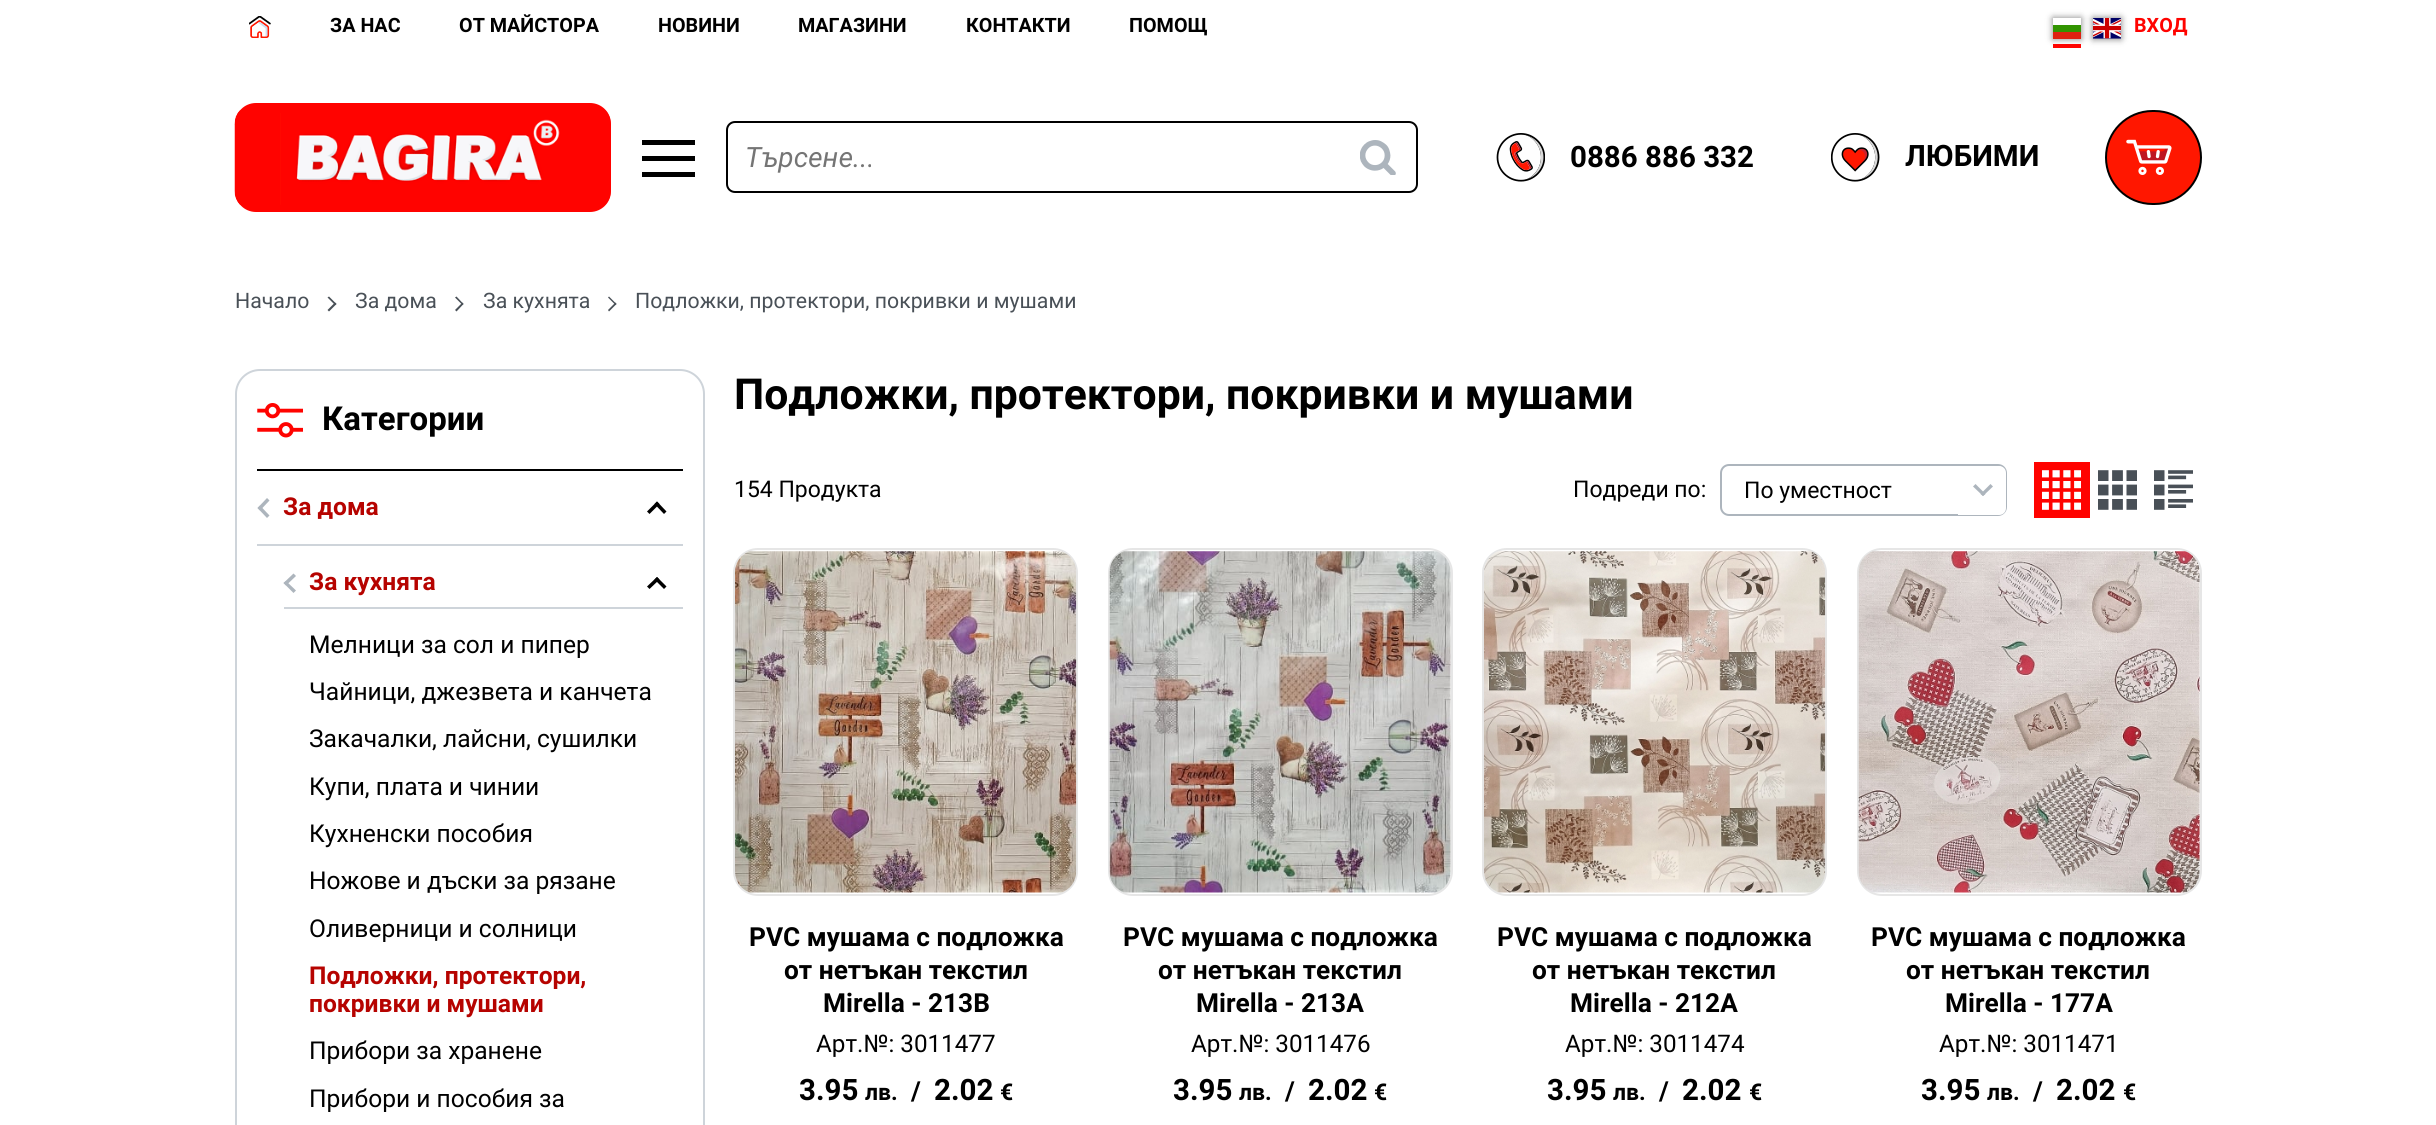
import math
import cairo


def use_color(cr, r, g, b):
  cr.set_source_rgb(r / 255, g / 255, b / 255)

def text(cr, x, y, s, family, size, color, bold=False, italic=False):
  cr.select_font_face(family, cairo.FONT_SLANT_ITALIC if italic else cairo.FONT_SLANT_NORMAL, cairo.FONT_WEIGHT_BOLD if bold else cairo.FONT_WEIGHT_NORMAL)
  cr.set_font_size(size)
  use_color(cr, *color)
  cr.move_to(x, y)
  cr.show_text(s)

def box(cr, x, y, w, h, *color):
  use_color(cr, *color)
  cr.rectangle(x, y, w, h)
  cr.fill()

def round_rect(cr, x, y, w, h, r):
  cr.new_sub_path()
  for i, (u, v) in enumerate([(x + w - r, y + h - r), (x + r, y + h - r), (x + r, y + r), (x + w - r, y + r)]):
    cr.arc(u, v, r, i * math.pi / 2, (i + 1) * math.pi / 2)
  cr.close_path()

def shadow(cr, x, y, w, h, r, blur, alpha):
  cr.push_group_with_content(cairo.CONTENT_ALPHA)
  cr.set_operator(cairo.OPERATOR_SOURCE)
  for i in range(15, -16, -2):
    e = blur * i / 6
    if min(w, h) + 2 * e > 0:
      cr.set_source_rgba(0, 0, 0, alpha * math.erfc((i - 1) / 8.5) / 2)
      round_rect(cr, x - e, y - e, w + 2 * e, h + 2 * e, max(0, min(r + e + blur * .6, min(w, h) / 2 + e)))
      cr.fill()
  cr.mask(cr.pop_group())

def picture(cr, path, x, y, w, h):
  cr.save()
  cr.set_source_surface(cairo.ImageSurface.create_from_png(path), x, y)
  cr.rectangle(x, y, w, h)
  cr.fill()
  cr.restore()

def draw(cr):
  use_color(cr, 255, 255, 255)
  cr.paint()
  picture(cr, "img_01.png", 249, 16, 22, 22)
  use_color(cr, 0, 0, 0)
  shadow(cr, 2053, 18, 28, 21, 0, 3.5, 0.5)
  box(cr, 2053, 18, 28, 7, 255, 255, 255)
  box(cr, 2053, 25, 28, 7, 49, 148, 0)
  box(cr, 2053, 32, 28, 7, 222, 33, 16)
  box(cr, 2053, 44, 28, 4, 255, 3, 0)
  use_color(cr, 0, 0, 0)
  shadow(cr, 2093, 18, 28, 21, 0, 3.5, 0.5)
  picture(cr, "img_02.png", 2093, 18, 28, 21)
  use_color(cr, 255, 3, 0)
  round_rect(cr, 235, 103, 376, 109, 21)
  cr.fill()
  picture(cr, "img_03.png", 234, 110, 377, 95)
  box(cr, 642, 156, 53, 5, 0, 0, 0)
  box(cr, 642, 140, 53, 5, 0, 0, 0)
  box(cr, 642, 172, 53, 5, 0, 0, 0)
  round_rect(cr, 727, 122, 690, 70, 8)
  cr.stroke()
  picture(cr, "img_04.png", 1360, 140, 36, 35)
  picture(cr, "img_05.png", 1496, 133, 49, 49)
  picture(cr, "img_06.png", 1831, 133, 49, 49)
  use_color(cr, 255, 23, 0)
  round_rect(cr, 2106, 111, 95, 93, 46.5)
  cr.fill_preserve()
  use_color(cr, 0, 0, 0)
  cr.stroke()
  picture(cr, "img_07.png", 2126, 139, 46, 36)
  use_color(cr, 73, 80, 87)
  cr.new_path()
  cr.move_to(327.5, 297.5)
  cr.line_to(329, 296.5)
  cr.line_to(336.5, 304)
  cr.line_to(335, 305)
  cr.close_path()
  cr.fill()
  cr.new_path()
  cr.move_to(327.5, 310)
  cr.line_to(335, 302.5)
  cr.line_to(336.5, 304)
  cr.line_to(329, 311.5)
  cr.close_path()
  cr.fill()
  cr.new_path()
  cr.move_to(455, 297.5)
  cr.line_to(456.5, 296.5)
  cr.line_to(463.5, 304)
  cr.line_to(462.5, 305)
  cr.close_path()
  cr.fill()
  cr.new_path()
  cr.move_to(455, 310)
  cr.line_to(462.5, 302.5)
  cr.line_to(463.5, 304)
  cr.line_to(456.5, 311.5)
  cr.close_path()
  cr.fill()
  cr.new_path()
  cr.move_to(608, 297.5)
  cr.line_to(609, 296.5)
  cr.line_to(616.5, 304)
  cr.line_to(615.5, 305)
  cr.close_path()
  cr.fill()
  cr.new_path()
  cr.move_to(608, 310)
  cr.line_to(615.5, 302.5)
  cr.line_to(616.5, 304)
  cr.line_to(609, 311.5)
  cr.close_path()
  cr.fill()
  round_rect(cr, 236, 370, 468, 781, 24)
  use_color(cr, 206, 212, 218)
  cr.stroke()
  box(cr, 257, 469, 426, 2, 0, 0, 0)
  picture(cr, "img_08.png", 257, 403, 46, 35)
  box(cr, 257, 544, 426, 2, 206, 212, 218)
  use_color(cr, 173, 181, 189)
  cr.new_path()
  cr.move_to(269.5, 515.5)
  cr.line_to(267, 518)
  cr.line_to(257.5, 508)
  cr.line_to(260, 505.5)
  cr.close_path()
  cr.fill()
  cr.new_path()
  cr.move_to(269.5, 500.5)
  cr.line_to(260, 510.5)
  cr.line_to(257.5, 508)
  cr.line_to(267, 498)
  cr.close_path()
  cr.fill()
  use_color(cr, 0, 0, 0)
  cr.new_path()
  cr.move_to(649.5, 514)
  cr.line_to(647, 511.5)
  cr.line_to(657, 501.5)
  cr.line_to(659.5, 504)
  cr.close_path()
  cr.fill()
  cr.new_path()
  cr.move_to(664, 514)
  cr.line_to(654.5, 504)
  cr.line_to(657, 501.5)
  cr.line_to(666.5, 511.5)
  cr.close_path()
  cr.fill()
  use_color(cr, 173, 181, 189)
  cr.new_path()
  cr.move_to(296, 590.5)
  cr.line_to(293.5, 593)
  cr.line_to(283.5, 583)
  cr.line_to(286, 581)
  cr.close_path()
  cr.fill()
  cr.new_path()
  cr.move_to(296, 576)
  cr.line_to(286, 585.5)
  cr.line_to(283.5, 583)
  cr.line_to(293.5, 573.5)
  cr.close_path()
  cr.fill()
  use_color(cr, 0, 0, 0)
  cr.new_path()
  cr.move_to(649.5, 589)
  cr.line_to(647, 586.5)
  cr.line_to(657, 577)
  cr.line_to(659.5, 579.5)
  cr.close_path()
  cr.fill()
  cr.new_path()
  cr.move_to(664, 589)
  cr.line_to(654.5, 579.5)
  cr.line_to(657, 577)
  cr.line_to(666.5, 586.5)
  cr.close_path()
  cr.fill()
  box(cr, 284, 607, 399, 2, 206, 212, 218)
  round_rect(cr, 1721, 465, 285, 50, 8)
  use_color(cr, 173, 181, 189)
  cr.stroke()
  use_color(cr, 255, 255, 255)
  cr.new_path()
  cr.move_to(1958, 466)
  cr.line_to(1999, 466)
  cr.curve_to(2003, 466, 2006, 469, 2006, 473)
  cr.line_to(2006, 508)
  cr.curve_to(2006, 512, 2003, 515, 1999, 515)
  cr.line_to(1958, 515)
  cr.close_path()
  cr.fill()
  use_color(cr, 173, 181, 189)
  cr.new_path()
  cr.move_to(1990.5, 484)
  cr.line_to(1993, 486.5)
  cr.line_to(1983, 496)
  cr.line_to(1980.5, 494)
  cr.close_path()
  cr.fill()
  cr.new_path()
  cr.move_to(1975.5, 484)
  cr.line_to(1985.5, 494)
  cr.line_to(1983, 496)
  cr.line_to(1973, 486.5)
  cr.close_path()
  cr.fill()
  box(cr, 2034, 462, 56, 56, 255, 3, 0)
  picture(cr, "img_09.png", 2042, 470, 39, 40)
  picture(cr, "img_10.png", 2098, 470, 39, 40)
  picture(cr, "img_11.png", 2154, 470, 39, 40)
  round_rect(cr, 734, 549, 343, 346, 24)
  use_color(cr, 230, 230, 230)
  cr.stroke()
  picture(cr, "img_12.png", 735, 551, 342, 342)
  round_rect(cr, 1109, 549, 343, 346, 24)
  cr.stroke()
  picture(cr, "img_13.png", 1109, 551, 342, 342)
  round_rect(cr, 1483, 549, 343, 346, 24)
  cr.stroke()
  picture(cr, "img_14.png", 1484, 551, 342, 342)
  round_rect(cr, 1858, 549, 343, 346, 24)
  cr.stroke()
  picture(cr, "img_15.png", 1858, 551, 342, 342)
  text(cr, 330, 32, "ЗА НАС", "Roboto", 19.75, (0, 0, 0), bold=True)
  text(cr, 459, 32, "ОТ МАЙСТОРА", "Roboto", 19.75, (0, 0, 0), bold=True)
  text(cr, 658, 32, "НОВИНИ", "Roboto", 19.75, (0, 0, 0), bold=True)
  text(cr, 798, 32, "МАГАЗИНИ", "Roboto", 19.75, (0, 0, 0), bold=True)
  text(cr, 966, 32, "КОНТАКТИ", "Roboto", 19.75, (0, 0, 0), bold=True)
  text(cr, 1129, 32, "ПОМОЩ", "Roboto", 19.75, (0, 0, 0), bold=True)
  text(cr, 2134, 32, "ВХОД", "Roboto", 19.75, (255, 3, 0), bold=True)
  text(cr, 745, 167, "Търсене...", "Roboto", 28, (117, 117, 117), italic=True)
  text(cr, 1570, 167, "0886 886 332", "Roboto", 29.5, (0, 0, 0), bold=True)
  text(cr, 1905, 166, "ЛЮБИМИ", "Roboto", 29.5, (0, 0, 0), bold=True)
  text(cr, 235, 308, "Начало", "Roboto", 21.3, (73, 80, 87))
  text(cr, 355, 308, "За дома", "Roboto", 21.3, (73, 80, 87))
  text(cr, 483, 308, "За кухнята", "Roboto", 21.3, (73, 80, 87))
  text(cr, 635, 308, "Подложки, протектори, покривки и мушами", "Roboto", 21.3, (73, 80, 87))
  text(cr, 322, 430, "Категории", "Roboto", 33, (0, 0, 0), bold=True)
  text(cr, 283, 515, "За дома", "Roboto", 24.6, (182, 3, 0), bold=True)
  text(cr, 309, 590, "За кухнята", "Roboto", 24.6, (182, 3, 0), bold=True)
  text(cr, 309, 653, "Мелници за сол и пипер", "Roboto", 24.6, (0, 0, 0))
  text(cr, 309, 700, "Чайници, джезвета и канчета", "Roboto", 24.6, (0, 0, 0))
  text(cr, 309, 747, "Закачалки, лайсни, сушилки", "Roboto", 24.6, (0, 0, 0))
  text(cr, 309, 795, "Купи, плата и чинии", "Roboto", 24.6, (0, 0, 0))
  text(cr, 309, 842, "Кухненски пособия", "Roboto", 24.6, (0, 0, 0))
  text(cr, 309, 889, "Ножове и дъски за рязане", "Roboto", 24.6, (0, 0, 0))
  text(cr, 309, 937, "Оливерници и солници", "Roboto", 24.6, (0, 0, 0))
  text(cr, 309, 984, "Подложки, протектори,", "Roboto", 24.6, (182, 3, 0), bold=True)
  text(cr, 309, 1012, "покривки и мушами", "Roboto", 24.6, (182, 3, 0), bold=True)
  text(cr, 309, 1059, "Прибори за хранене", "Roboto", 24.6, (0, 0, 0))
  text(cr, 309, 1107, "Прибори и пособия за", "Roboto", 24.6, (0, 0, 0))
  text(cr, 734, 409, "Подложки, протектори, покривки и мушами", "Roboto", 42.7, (0, 0, 0), bold=True)
  text(cr, 734, 497, "154 Продукта", "Roboto", 23, (0, 0, 0))
  text(cr, 1573, 497, "Подреди по:", "Roboto", 23, (0, 0, 0))
  text(cr, 1744, 498, "По уместност", "Roboto", 23, (0, 0, 0))
  text(cr, 749, 946, "PVC мушама с подложка", "Roboto", 26.25, (0, 0, 0), bold=True)
  text(cr, 784, 979, "от нетъкан текстил", "Roboto", 26.25, (0, 0, 0), bold=True)
  text(cr, 823, 1012, "Mirella - 213B", "Roboto", 26.25, (0, 0, 0), bold=True)
  text(cr, 816, 1052, "Арт.№: 3011477", "Roboto", 24.25, (0, 0, 0))
  text(cr, 799, 1100, "3.95", "Roboto", 29.5, (0, 0, 0), bold=True)
  text(cr, 865, 1100, "лв.", "Roboto", 23, (0, 0, 0), bold=True)
  text(cr, 911, 1100, "/", "Roboto", 26.25, (0, 0, 0), bold=True)
  text(cr, 934, 1100, "2.02", "Roboto", 29.5, (0, 0, 0), bold=True)
  text(cr, 1000, 1100, "€", "Roboto", 23, (0, 0, 0), bold=True)
  text(cr, 1123, 946, "PVC мушама с подложка", "Roboto", 26.25, (0, 0, 0), bold=True)
  text(cr, 1158, 979, "от нетъкан текстил", "Roboto", 26.25, (0, 0, 0), bold=True)
  text(cr, 1196, 1012, "Mirella - 213A", "Roboto", 26.25, (0, 0, 0), bold=True)
  text(cr, 1191, 1052, "Арт.№: 3011476", "Roboto", 24.25, (0, 0, 0))
  text(cr, 1173, 1100, "3.95", "Roboto", 29.5, (0, 0, 0), bold=True)
  text(cr, 1239, 1100, "лв.", "Roboto", 23, (0, 0, 0), bold=True)
  text(cr, 1285, 1100, "/", "Roboto", 26.25, (0, 0, 0), bold=True)
  text(cr, 1308, 1100, "2.02", "Roboto", 29.5, (0, 0, 0), bold=True)
  text(cr, 1374, 1100, "€", "Roboto", 23, (0, 0, 0), bold=True)
  text(cr, 1497, 946, "PVC мушама с подложка", "Roboto", 26.25, (0, 0, 0), bold=True)
  text(cr, 1532, 979, "от нетъкан текстил", "Roboto", 26.25, (0, 0, 0), bold=True)
  text(cr, 1570, 1012, "Mirella - 212A", "Roboto", 26.25, (0, 0, 0), bold=True)
  text(cr, 1565, 1052, "Арт.№: 3011474", "Roboto", 24.25, (0, 0, 0))
  text(cr, 1547, 1100, "3.95", "Roboto", 29.5, (0, 0, 0), bold=True)
  text(cr, 1613, 1100, "лв.", "Roboto", 23, (0, 0, 0), bold=True)
  text(cr, 1659, 1100, "/", "Roboto", 26.25, (0, 0, 0), bold=True)
  text(cr, 1682, 1100, "2.02", "Roboto", 29.5, (0, 0, 0), bold=True)
  text(cr, 1749, 1100, "€", "Roboto", 23, (0, 0, 0), bold=True)
  text(cr, 1871, 946, "PVC мушама с подложка", "Roboto", 26.25, (0, 0, 0), bold=True)
  text(cr, 1906, 979, "от нетъкан текстил", "Roboto", 26.25, (0, 0, 0), bold=True)
  text(cr, 1945, 1012, "Mirella - 177A", "Roboto", 26.25, (0, 0, 0), bold=True)
  text(cr, 1939, 1052, "Арт.№: 3011471", "Roboto", 24.25, (0, 0, 0))
  text(cr, 1921, 1100, "3.95", "Roboto", 29.5, (0, 0, 0), bold=True)
  text(cr, 1987, 1100, "лв.", "Roboto", 23, (0, 0, 0), bold=True)
  text(cr, 2033, 1100, "/", "Roboto", 26.25, (0, 0, 0), bold=True)
  text(cr, 2056, 1100, "2.02", "Roboto", 29.5, (0, 0, 0), bold=True)
  text(cr, 2123, 1100, "€", "Roboto", 23, (0, 0, 0), bold=True)


surface = cairo.ImageSurface(cairo.FORMAT_RGB24, 2436, 1125)
cr = cairo.Context(surface)
options = cairo.FontOptions()
options.set_hint_metrics(cairo.HINT_METRICS_OFF)
options.set_hint_style(cairo.HINT_STYLE_NONE)
cr.set_font_options(options)
cr.set_miter_limit(4)
draw(cr)
surface.write_to_png("out.png")
